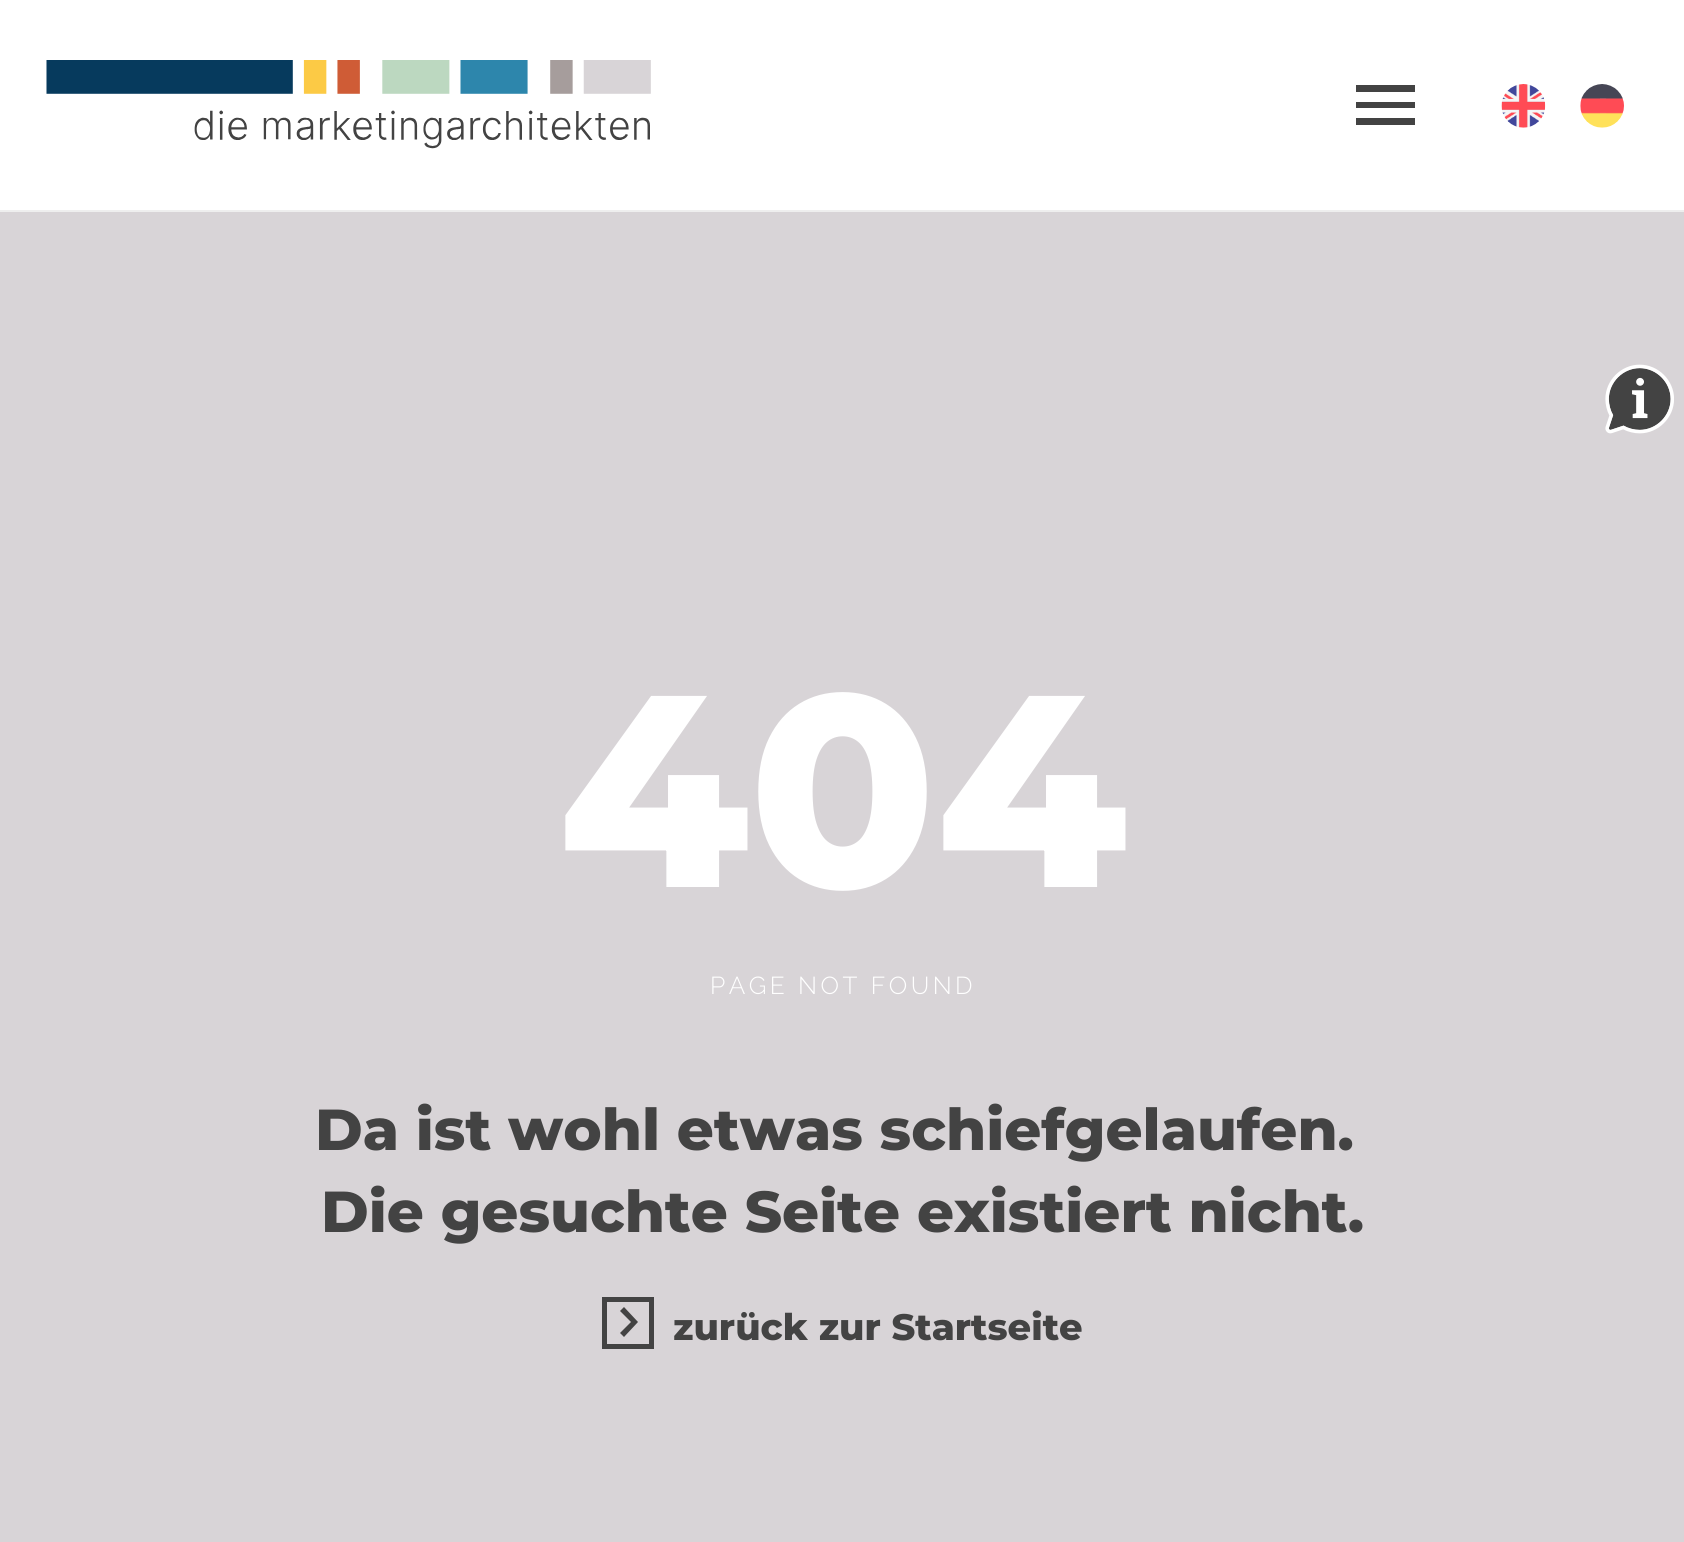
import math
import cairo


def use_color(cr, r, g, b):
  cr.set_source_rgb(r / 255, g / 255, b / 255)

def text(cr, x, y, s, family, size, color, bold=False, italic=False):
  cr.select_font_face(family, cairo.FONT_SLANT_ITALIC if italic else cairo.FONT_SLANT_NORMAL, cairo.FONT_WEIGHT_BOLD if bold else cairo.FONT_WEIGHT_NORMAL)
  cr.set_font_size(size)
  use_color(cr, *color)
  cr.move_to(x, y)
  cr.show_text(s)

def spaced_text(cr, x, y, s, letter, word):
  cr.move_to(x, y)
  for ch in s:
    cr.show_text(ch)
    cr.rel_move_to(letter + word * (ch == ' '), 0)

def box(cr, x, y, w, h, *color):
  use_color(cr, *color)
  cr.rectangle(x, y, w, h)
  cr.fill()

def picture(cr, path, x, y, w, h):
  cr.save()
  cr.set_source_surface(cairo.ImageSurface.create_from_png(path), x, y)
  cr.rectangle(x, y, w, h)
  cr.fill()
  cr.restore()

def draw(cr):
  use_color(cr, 255, 255, 255)
  cr.paint()
  box(cr, 0, 210, 1684, 2, 238, 238, 238)
  picture(cr, "img_01.png", 46, 60, 605, 89)
  use_color(cr, 67, 67, 67)
  cr.new_path()
  cr.move_to(1356, 125)
  cr.line_to(1356, 118)
  cr.line_to(1415, 118)
  cr.line_to(1415, 125)
  cr.close_path()
  cr.move_to(1356, 108)
  cr.line_to(1356, 102)
  cr.line_to(1415, 102)
  cr.line_to(1415, 108)
  cr.close_path()
  cr.move_to(1356, 85)
  cr.line_to(1415, 85)
  cr.line_to(1415, 92)
  cr.line_to(1356, 92)
  cr.close_path()
  cr.fill()
  picture(cr, "img_02.png", 1501, 84, 45, 44)
  picture(cr, "img_03.png", 1580, 84, 44, 44)
  box(cr, 0, 212, 1684, 1330, 216, 212, 215)
  picture(cr, "img_04.png", 1605, 364, 69, 70)
  use_color(cr, 67, 67, 67)
  cr.new_path()
  cr.move_to(620, 1311)
  cr.line_to(631, 1322)
  cr.line_to(620, 1333)
  cr.line_to(624, 1337)
  cr.line_to(638, 1322)
  cr.line_to(624, 1307)
  cr.close_path()
  cr.move_to(602, 1297)
  cr.line_to(602, 1349)
  cr.line_to(654, 1349)
  cr.line_to(654, 1297)
  cr.close_path()
  cr.move_to(607, 1344)
  cr.line_to(607, 1302)
  cr.line_to(649, 1302)
  cr.line_to(649, 1344)
  cr.close_path()
  cr.fill()
  text(cr, 558, 887, "404", "Montserrat Thin", 273, (255, 255, 255))
  cr.select_font_face("Raleway Thin")
  cr.set_font_size(24.5)
  spaced_text(cr, 710, 994, "PAGE NOT FOUND", 3.5, 0)
  text(cr, 315, 1150, "Da ist wohl etwas schiefgelaufen.", "Montserrat Thin", 57.75, (67, 67, 67))
  text(cr, 321, 1232, "Die gesuchte Seite existiert nicht.", "Montserrat Thin", 57.75, (67, 67, 67))
  text(cr, 673, 1340, "zurück zur Startseite", "Montserrat Thin", 36.75, (67, 67, 67))


surface = cairo.ImageSurface(cairo.FORMAT_RGB24, 1684, 1542)
cr = cairo.Context(surface)
options = cairo.FontOptions()
options.set_hint_metrics(cairo.HINT_METRICS_OFF)
options.set_hint_style(cairo.HINT_STYLE_NONE)
cr.set_font_options(options)
cr.set_miter_limit(4)
draw(cr)
surface.write_to_png("out.png")
